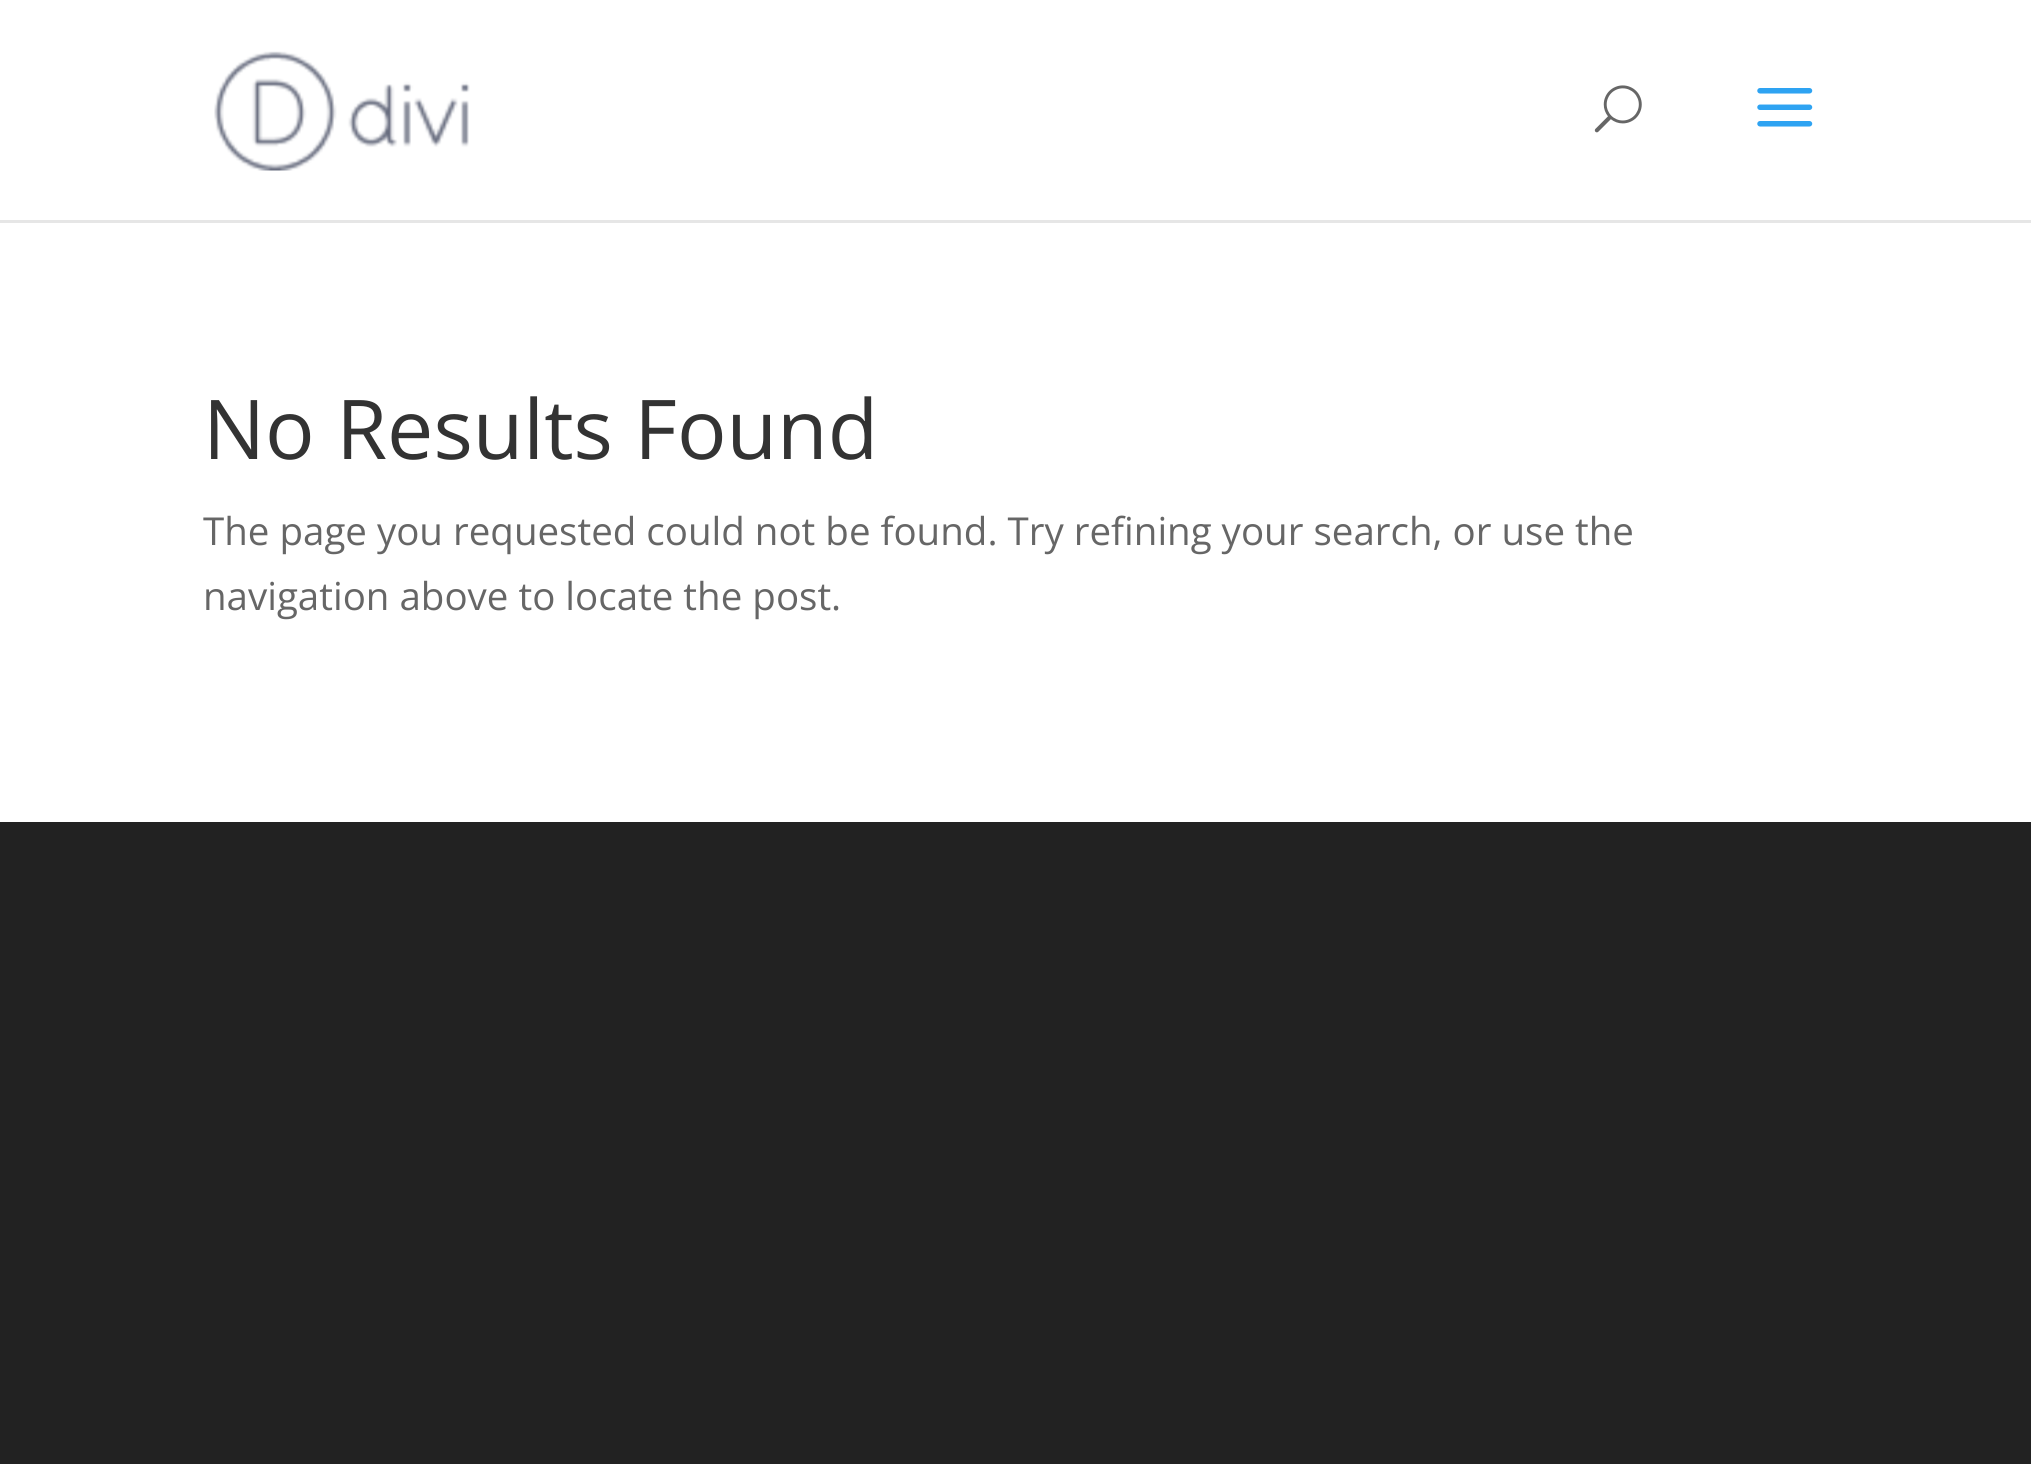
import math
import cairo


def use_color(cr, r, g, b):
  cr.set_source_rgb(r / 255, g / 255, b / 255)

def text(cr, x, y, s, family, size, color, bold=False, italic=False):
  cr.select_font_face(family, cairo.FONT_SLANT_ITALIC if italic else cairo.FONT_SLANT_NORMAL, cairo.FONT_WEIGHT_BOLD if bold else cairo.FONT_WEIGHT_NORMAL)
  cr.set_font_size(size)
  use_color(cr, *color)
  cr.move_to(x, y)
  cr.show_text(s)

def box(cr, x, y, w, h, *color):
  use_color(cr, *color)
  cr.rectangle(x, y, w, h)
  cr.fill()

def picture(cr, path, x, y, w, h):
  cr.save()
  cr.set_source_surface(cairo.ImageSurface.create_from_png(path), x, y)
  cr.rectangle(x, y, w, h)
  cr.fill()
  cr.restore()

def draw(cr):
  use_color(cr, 255, 255, 255)
  cr.paint()
  box(cr, 0, 220, 2031, 3, 230, 230, 230)
  picture(cr, "img_01.png", 214, 51, 256, 120)
  picture(cr, "img_02.png", 1594, 85, 48, 48)
  picture(cr, "img_03.png", 1757, 88, 56, 39)
  box(cr, 0, 822, 2031, 642, 34, 34, 34)
  text(cr, 203, 459, "No Results Found", "Open Sans", 82.5, (51, 51, 51))
  text(cr, 203, 545, "The page you requested could not be found. Try refining your search, or use the", "Open Sans", 38.5, (102, 102, 102))
  text(cr, 203, 610, "navigation above to locate the post.", "Open Sans", 38.5, (102, 102, 102))


surface = cairo.ImageSurface(cairo.FORMAT_RGB24, 2031, 1464)
cr = cairo.Context(surface)
options = cairo.FontOptions()
options.set_hint_metrics(cairo.HINT_METRICS_OFF)
options.set_hint_style(cairo.HINT_STYLE_NONE)
cr.set_font_options(options)
cr.set_miter_limit(4)
draw(cr)
surface.write_to_png("out.png")
